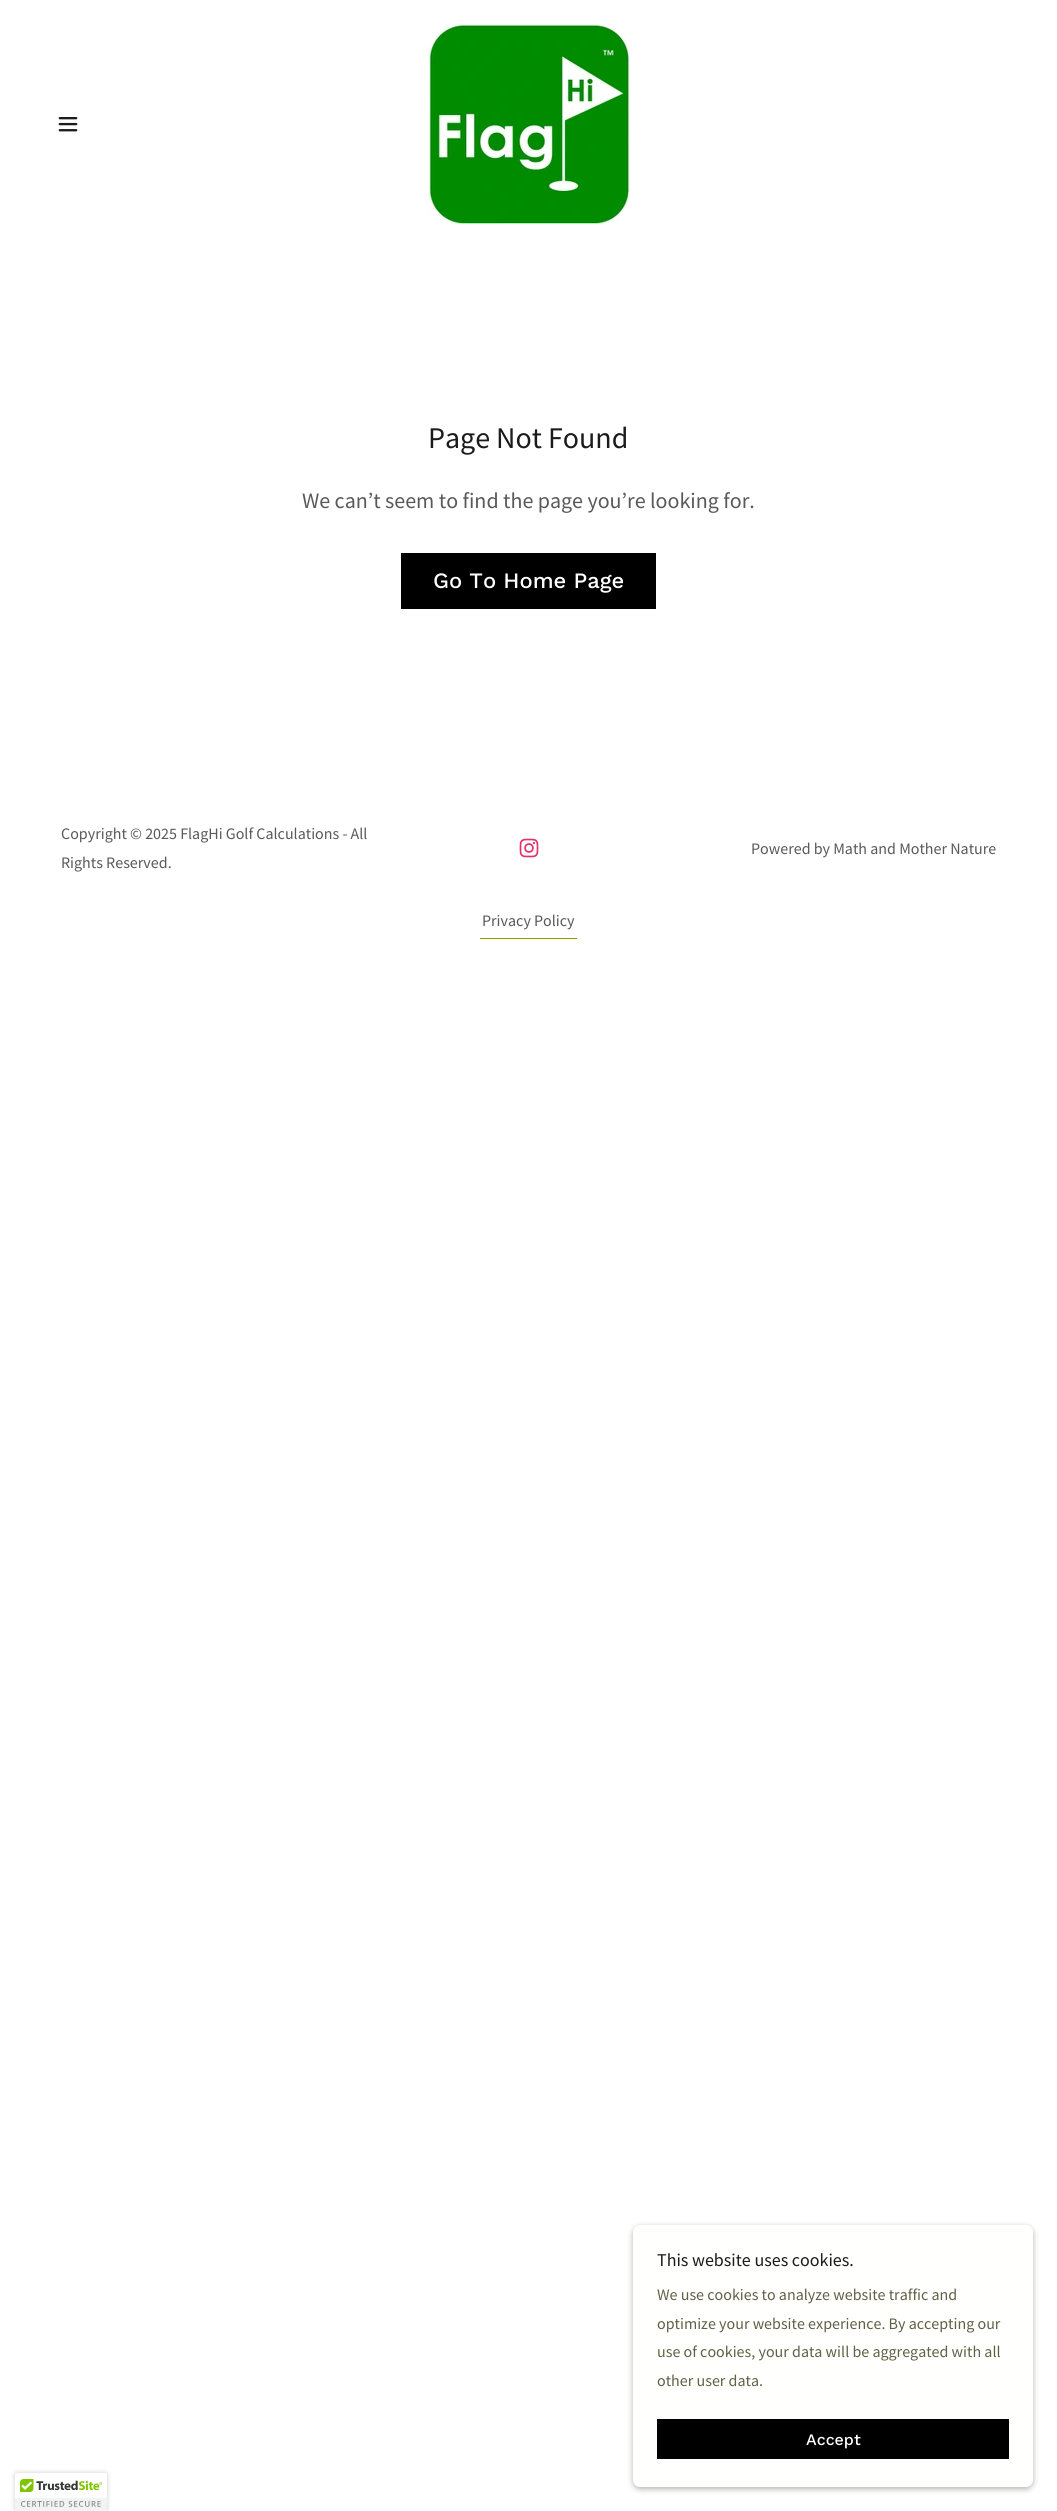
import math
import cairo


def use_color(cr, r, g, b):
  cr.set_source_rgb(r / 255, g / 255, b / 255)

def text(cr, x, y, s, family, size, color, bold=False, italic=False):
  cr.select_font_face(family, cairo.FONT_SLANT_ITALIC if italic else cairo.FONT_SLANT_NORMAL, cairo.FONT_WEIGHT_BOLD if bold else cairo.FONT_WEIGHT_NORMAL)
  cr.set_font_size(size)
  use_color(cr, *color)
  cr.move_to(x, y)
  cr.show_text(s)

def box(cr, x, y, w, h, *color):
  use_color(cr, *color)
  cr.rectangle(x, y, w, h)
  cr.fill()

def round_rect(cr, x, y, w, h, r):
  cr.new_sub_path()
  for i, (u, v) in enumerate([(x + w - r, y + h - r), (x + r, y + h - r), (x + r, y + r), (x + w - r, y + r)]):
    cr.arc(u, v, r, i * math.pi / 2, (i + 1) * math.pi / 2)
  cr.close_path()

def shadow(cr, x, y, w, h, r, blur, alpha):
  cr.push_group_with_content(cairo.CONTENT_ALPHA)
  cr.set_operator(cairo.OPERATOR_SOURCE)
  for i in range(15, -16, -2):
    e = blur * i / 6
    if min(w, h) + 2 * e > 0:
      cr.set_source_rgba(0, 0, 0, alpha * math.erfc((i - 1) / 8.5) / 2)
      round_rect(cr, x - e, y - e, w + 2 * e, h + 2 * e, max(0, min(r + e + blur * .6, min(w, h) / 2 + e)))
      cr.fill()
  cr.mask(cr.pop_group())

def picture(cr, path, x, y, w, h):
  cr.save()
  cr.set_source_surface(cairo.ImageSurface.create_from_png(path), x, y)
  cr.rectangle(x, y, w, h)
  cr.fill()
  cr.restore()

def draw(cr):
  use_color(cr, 255, 255, 255)
  cr.paint()
  picture(cr, "img_01.png", 58, 117, 20, 15)
  picture(cr, "img_02.png", 428, 24, 203, 200)
  box(cr, 401, 553, 255, 56, 0, 0, 0)
  picture(cr, "img_03.png", 519, 838, 20, 20)
  box(cr, 480, 938, 97, 1, 150, 150, 0)
  use_color(cr, 0, 0, 0)
  shadow(cr, 633, 2227, 400, 262, 7, 3, 0.3)
  use_color(cr, 255, 255, 254)
  round_rect(cr, 633, 2225, 400, 262, 7)
  cr.fill()
  box(cr, 657, 2419, 352, 40, 0, 0, 0)
  use_color(cr, 0, 0, 0)
  shadow(cr, 15, 2473, 92, 38, 2, 2.5, 0.2)
  use_color(cr, 255, 255, 255)
  cr.new_path()
  cr.move_to(17, 2473)
  cr.line_to(105, 2473)
  cr.curve_to(106, 2473, 107, 2474, 107, 2475)
  cr.line_to(107, 2511)
  cr.line_to(15, 2511)
  cr.line_to(15, 2475)
  cr.curve_to(15, 2474, 16, 2473, 17, 2473)
  cr.close_path()
  cr.fill()
  picture(cr, "img_04.png", 15, 2479, 92, 32)
  text(cr, 428, 448, "Page Not Found", "Source Sans Pro", 30, (27, 27, 27))
  text(cr, 302, 508, "We can’t seem to find the page you’re looking for.", "Source Sans Pro", 22, (89, 89, 89))
  text(cr, 433, 588, "Go To Home Page", "Work Sans Medium", 22, (255, 255, 255))
  text(cr, 61, 839, "Copyright © 2025 FlagHi Golf Calculations - All", "Source Sans Pro", 16, (89, 89, 89))
  text(cr, 61, 868, "Rights Reserved.", "Source Sans Pro", 16, (89, 89, 89))
  text(cr, 751, 854, "Powered by Math and Mother Nature", "Source Sans Pro", 16, (89, 89, 89))
  text(cr, 482, 926, "Privacy Policy", "Source Sans Pro", 16, (89, 89, 89))
  text(cr, 657, 2266, "This website uses cookies.", "Source Sans Pro", 18, (27, 27, 27))
  text(cr, 657, 2300, "We use cookies to analyze website traffic and", "Source Sans Pro", 16, (96, 96, 71))
  text(cr, 657, 2329, "optimize your website experience. By accepting our", "Source Sans Pro", 16, (96, 96, 71))
  text(cr, 657, 2357, "use of cookies, your data will be aggregated with all", "Source Sans Pro", 16, (96, 96, 71))
  text(cr, 657, 2386, "other user data.", "Source Sans Pro", 16, (96, 96, 71))
  text(cr, 806, 2445, "Accept", "Work Sans Medium", 16, (255, 255, 255))


surface = cairo.ImageSurface(cairo.FORMAT_RGB24, 1057, 2511)
cr = cairo.Context(surface)
options = cairo.FontOptions()
options.set_hint_metrics(cairo.HINT_METRICS_OFF)
options.set_hint_style(cairo.HINT_STYLE_NONE)
cr.set_font_options(options)
cr.set_miter_limit(4)
draw(cr)
surface.write_to_png("out.png")
